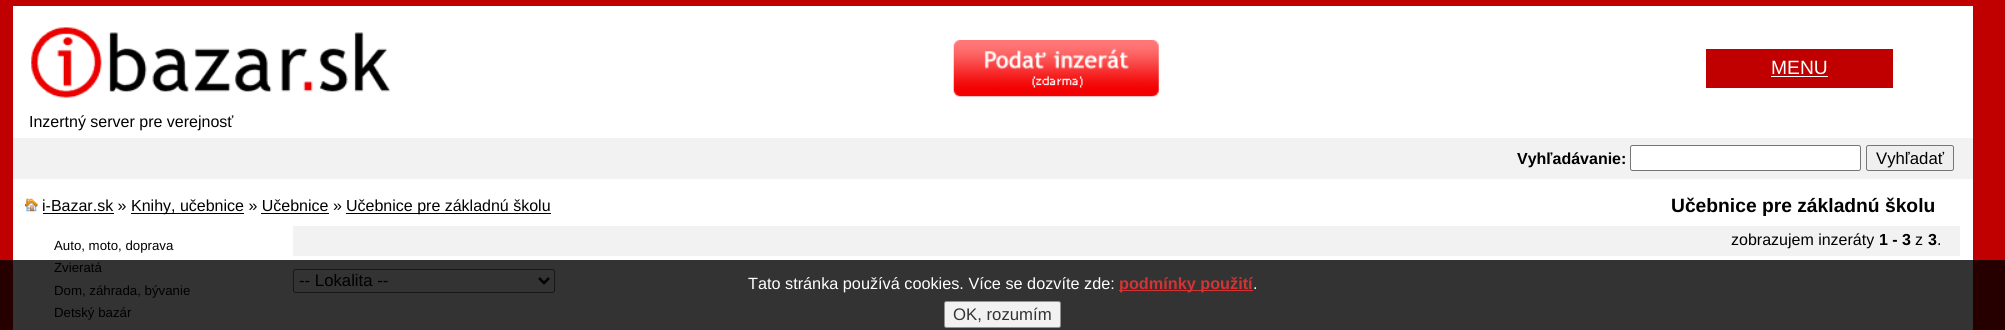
import math
import cairo


def use_color(cr, r, g, b):
  cr.set_source_rgb(r / 255, g / 255, b / 255)

def text(cr, x, y, s, family, size, color, bold=False, italic=False):
  cr.select_font_face(family, cairo.FONT_SLANT_ITALIC if italic else cairo.FONT_SLANT_NORMAL, cairo.FONT_WEIGHT_BOLD if bold else cairo.FONT_WEIGHT_NORMAL)
  cr.set_font_size(size)
  use_color(cr, *color)
  cr.move_to(x, y)
  cr.show_text(s)

def box(cr, x, y, w, h, *color):
  use_color(cr, *color)
  cr.rectangle(x, y, w, h)
  cr.fill()

def round_rect(cr, x, y, w, h, r):
  cr.new_sub_path()
  for i, (u, v) in enumerate([(x + w - r, y + h - r), (x + r, y + h - r), (x + r, y + r), (x + w - r, y + r)]):
    cr.arc(u, v, r, i * math.pi / 2, (i + 1) * math.pi / 2)
  cr.close_path()

def picture(cr, path, x, y, w, h):
  cr.save()
  cr.set_source_surface(cairo.ImageSurface.create_from_png(path), x, y)
  cr.rectangle(x, y, w, h)
  cr.fill()
  cr.restore()

def draw(cr):
  use_color(cr, 192, 0, 0)
  cr.paint()
  box(cr, 0, 260, 2005, 70, 38, 0, 0)
  box(cr, 13, 6, 1960, 254, 255, 255, 255)
  box(cr, 13, 260, 1960, 70, 51, 51, 51)
  picture(cr, "img_01.png", 31, 27, 360, 71)
  picture(cr, "img_02.png", 953, 40, 206, 57)
  box(cr, 1706, 49, 187, 39, 192, 0, 0)
  box(cr, 1771, 76, 57, 1, 255, 255, 255)
  box(cr, 13, 138, 1960, 41, 242, 242, 242)
  use_color(cr, 255, 255, 255)
  round_rect(cr, 1630.5, 145.5, 230, 25, 2)
  cr.fill_preserve()
  use_color(cr, 118, 118, 118)
  cr.set_line_width(1)
  cr.stroke()
  use_color(cr, 239, 239, 239)
  round_rect(cr, 1866.5, 145.5, 87, 25, 2)
  cr.fill_preserve()
  use_color(cr, 118, 118, 118)
  cr.stroke()
  picture(cr, "img_03.png", 25, 198, 13, 14)
  box(cr, 43, 213, 71, 1, 0, 0, 0)
  box(cr, 131, 213, 113, 1, 0, 0, 0)
  box(cr, 346, 213, 205, 1, 0, 0, 0)
  box(cr, 261, 213, 68, 1, 0, 0, 0)
  box(cr, 293, 226, 1667, 30, 242, 242, 242)
  round_rect(cr, 293.5, 269.5, 261, 23, 2)
  use_color(cr, 24, 24, 24)
  cr.stroke()
  cr.new_path()
  cr.move_to(539, 278)
  cr.line_to(544, 283)
  cr.line_to(549, 278)
  use_color(cr, 0, 0, 0)
  cr.set_line_width(2.5)
  cr.stroke()
  box(cr, 1119, 290, 134, 1, 213, 51, 51)
  use_color(cr, 242, 242, 242)
  round_rect(cr, 944.5, 301.5, 116, 26, 2)
  cr.fill_preserve()
  use_color(cr, 145, 145, 145)
  cr.set_line_width(1)
  cr.stroke()
  text(cr, 1771, 74, "MENU", "Liberation Sans", 19.25, (255, 255, 255))
  text(cr, 29, 127, "Inzertný server pre verejnosť", "Liberation Sans", 16, (0, 0, 0))
  text(cr, 1517, 164, "Vyhľadávanie:", "Liberation Sans", 16, (0, 0, 0), bold=True)
  text(cr, 1876, 164, "Vyhľadať", "Liberation Sans", 16.75, (0, 0, 0))
  text(cr, 42, 211, "i-Bazar.sk »", "Liberation Sans", 16, (0, 0, 0))
  text(cr, 131, 211, "Knihy, učebnice » Učebnice »", "Liberation Sans", 16, (0, 0, 0))
  text(cr, 346, 211, "Učebnice pre základnú školu", "Liberation Sans", 16, (0, 0, 0))
  text(cr, 1671, 212, "Učebnice pre základnú školu", "Liberation Sans", 19.25, (0, 0, 0), bold=True)
  text(cr, 54, 250, "Auto, moto, doprava", "Liberation Sans", 13.25, (0, 0, 0))
  text(cr, 54, 272, "Zvieratá", "Liberation Sans", 13.25, (0, 0, 0))
  text(cr, 54, 295, "Dom, záhrada, bývanie", "Liberation Sans", 13.25, (0, 0, 0))
  text(cr, 54, 317, "Detský bazár", "Liberation Sans", 13.25, (0, 0, 0))
  text(cr, 1731, 245, "zobrazujem inzeráty", "Liberation Sans", 16, (0, 0, 0))
  text(cr, 1879, 245, "1 - 3", "Liberation Sans", 16, (0, 0, 0), bold=True)
  text(cr, 1915, 245, "z", "Liberation Sans", 16, (0, 0, 0))
  text(cr, 1928, 245, "3", "Liberation Sans", 16, (0, 0, 0), bold=True)
  text(cr, 1937, 245, ".", "Liberation Sans", 16, (0, 0, 0))
  text(cr, 299, 286, "-- Lokalita --", "Liberation Sans", 16.75, (0, 0, 0))
  text(cr, 748, 289, "Tato stránka používá cookies. Více se dozvíte zde:", "Liberation Sans", 16.25, (255, 255, 255))
  text(cr, 1119, 289, "podmínky použití", "Liberation Sans", 16.25, (213, 51, 51), bold=True)
  text(cr, 1253, 289, ".", "Liberation Sans", 16.25, (255, 255, 255))
  text(cr, 953, 320, "OK, rozumím", "Liberation Sans", 16.75, (51, 51, 51))


surface = cairo.ImageSurface(cairo.FORMAT_RGB24, 2005, 330)
cr = cairo.Context(surface)
options = cairo.FontOptions()
options.set_hint_metrics(cairo.HINT_METRICS_OFF)
options.set_hint_style(cairo.HINT_STYLE_NONE)
cr.set_font_options(options)
cr.set_miter_limit(4)
draw(cr)
surface.write_to_png("out.png")
